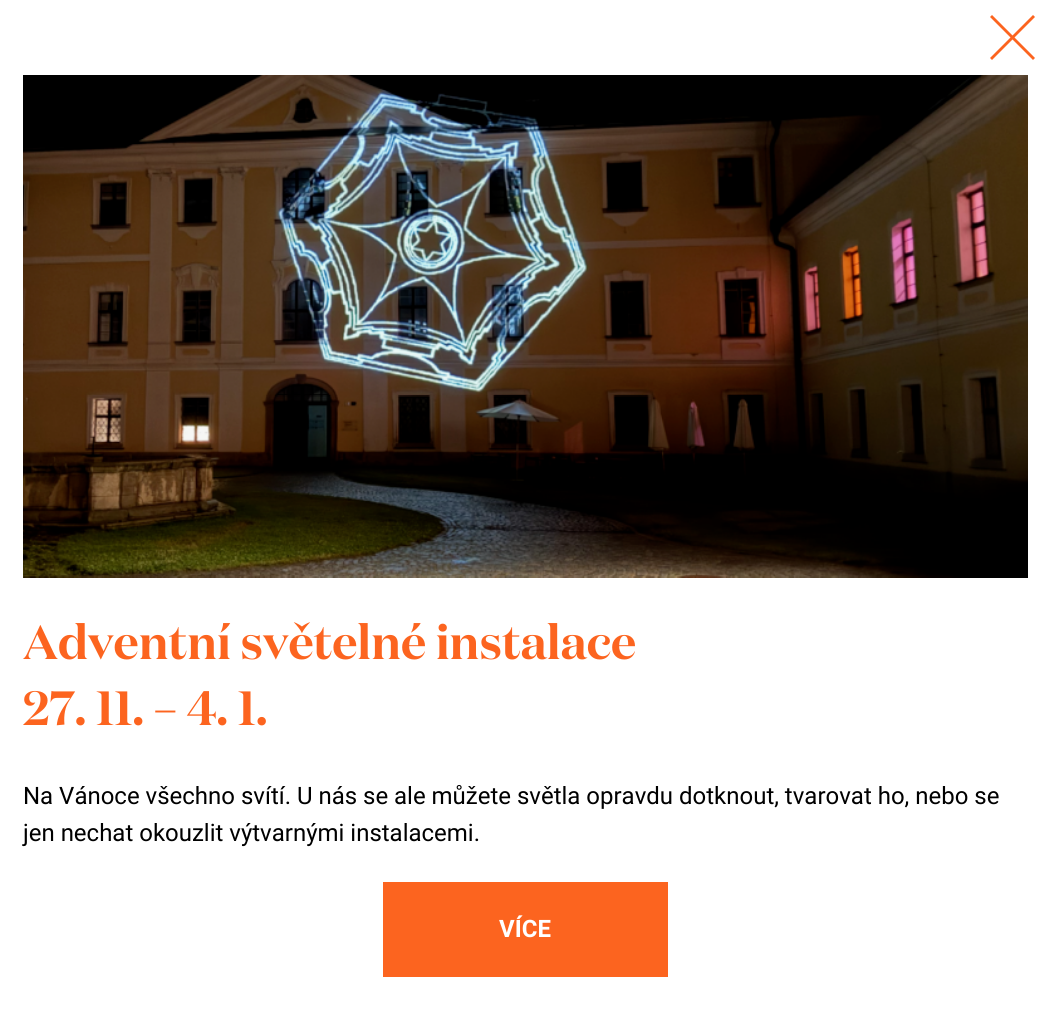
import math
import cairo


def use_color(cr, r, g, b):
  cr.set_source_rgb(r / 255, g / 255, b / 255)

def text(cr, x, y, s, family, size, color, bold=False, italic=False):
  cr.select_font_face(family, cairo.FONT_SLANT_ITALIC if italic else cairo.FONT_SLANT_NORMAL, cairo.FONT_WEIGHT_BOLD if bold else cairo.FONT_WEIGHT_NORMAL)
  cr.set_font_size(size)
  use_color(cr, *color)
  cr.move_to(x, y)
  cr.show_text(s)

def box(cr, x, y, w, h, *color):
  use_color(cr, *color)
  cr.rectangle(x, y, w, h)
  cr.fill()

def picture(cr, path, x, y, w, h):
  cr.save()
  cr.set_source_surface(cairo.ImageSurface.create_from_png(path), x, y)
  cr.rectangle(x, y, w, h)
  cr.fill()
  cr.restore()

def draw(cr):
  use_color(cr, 255, 255, 255)
  cr.paint()
  use_color(cr, 252, 100, 31)
  cr.new_path()
  cr.move_to(1033, 15)
  cr.line_to(1035, 17)
  cr.line_to(992, 60)
  cr.line_to(990, 58)
  cr.close_path()
  cr.fill()
  cr.new_path()
  cr.move_to(990, 17)
  cr.line_to(992, 15)
  cr.line_to(1035, 58)
  cr.line_to(1033, 60)
  cr.close_path()
  cr.fill()
  picture(cr, "img_01.png", 23, 75, 1005, 503)
  box(cr, 383, 882, 285, 95, 252, 100, 31)
  text(cr, 23, 659, "Adventní světelné instalace", "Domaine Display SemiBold", 48, (252, 100, 31))
  text(cr, 23, 725, "27. 11. – 4. 1.", "Domaine Display SemiBold", 48, (252, 100, 31))
  text(cr, 23, 804, "Na Vánoce všechno svítí. U nás se ale můžete světla opravdu dotknout, tvarovat ho, nebo se", "Roboto", 24, (0, 0, 0))
  text(cr, 23, 841, "jen nechat okouzlit výtvarnými instalacemi.", "Roboto", 24, (0, 0, 0))
  text(cr, 499, 937, "VÍCE", "Roboto", 24, (255, 255, 255), bold=True)


surface = cairo.ImageSurface(cairo.FORMAT_RGB24, 1049, 1019)
cr = cairo.Context(surface)
options = cairo.FontOptions()
options.set_hint_metrics(cairo.HINT_METRICS_OFF)
options.set_hint_style(cairo.HINT_STYLE_NONE)
cr.set_font_options(options)
cr.set_miter_limit(4)
draw(cr)
surface.write_to_png("out.png")
